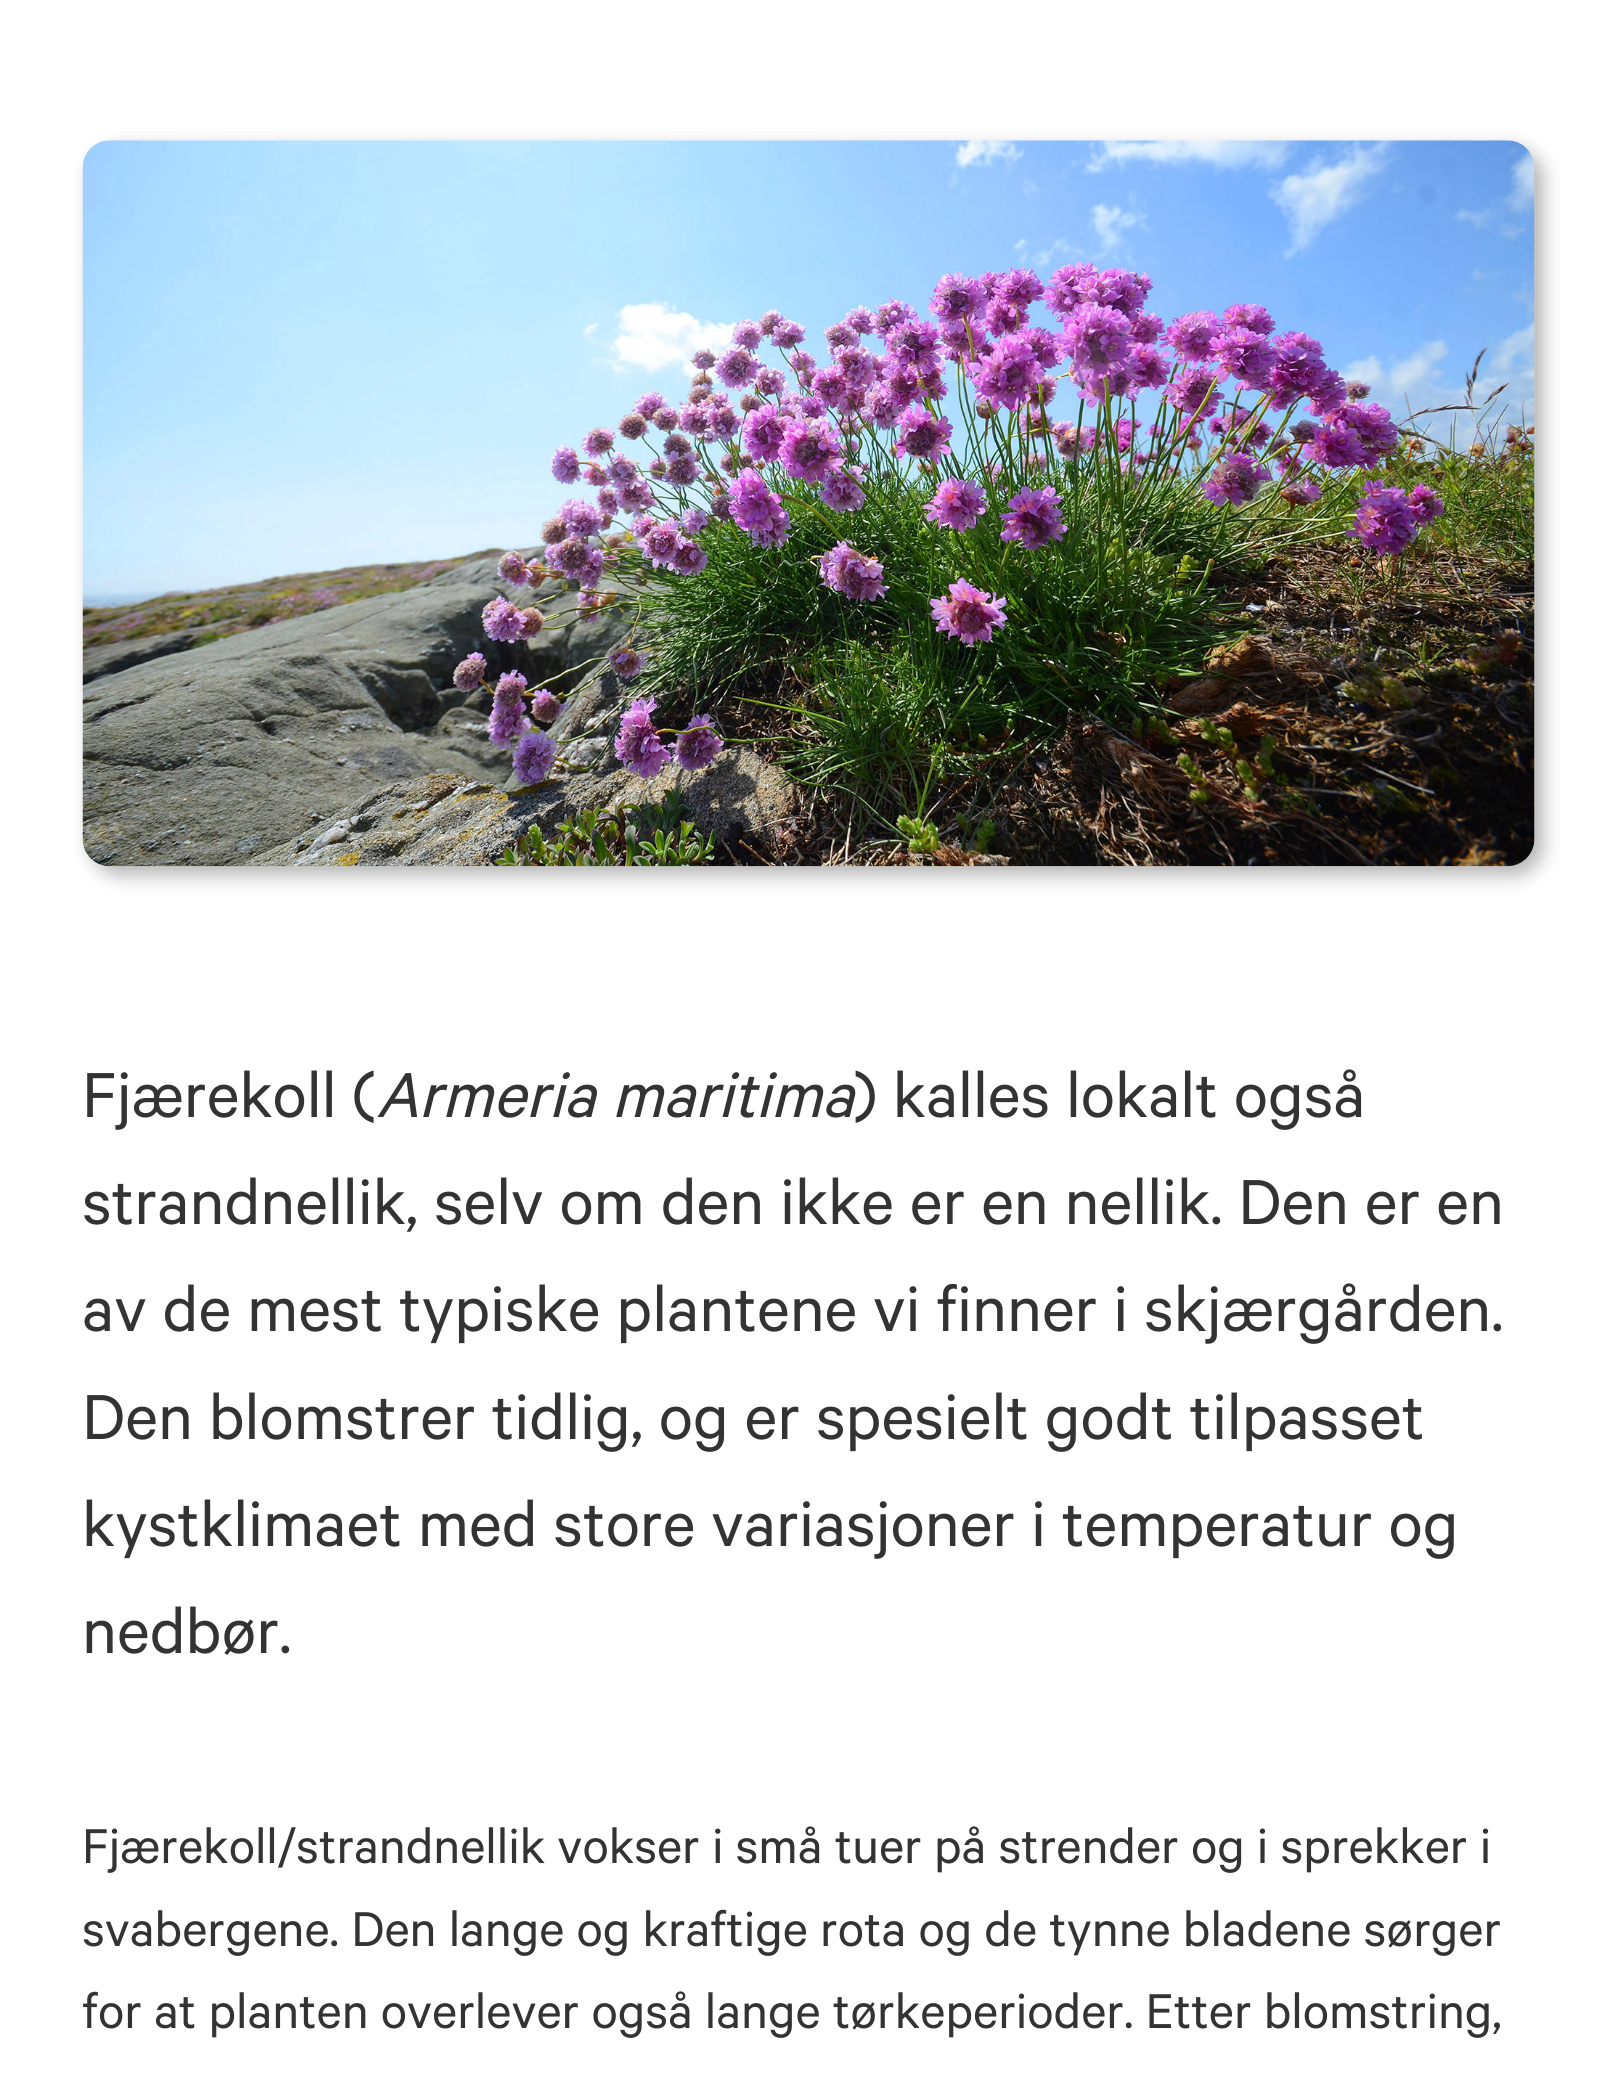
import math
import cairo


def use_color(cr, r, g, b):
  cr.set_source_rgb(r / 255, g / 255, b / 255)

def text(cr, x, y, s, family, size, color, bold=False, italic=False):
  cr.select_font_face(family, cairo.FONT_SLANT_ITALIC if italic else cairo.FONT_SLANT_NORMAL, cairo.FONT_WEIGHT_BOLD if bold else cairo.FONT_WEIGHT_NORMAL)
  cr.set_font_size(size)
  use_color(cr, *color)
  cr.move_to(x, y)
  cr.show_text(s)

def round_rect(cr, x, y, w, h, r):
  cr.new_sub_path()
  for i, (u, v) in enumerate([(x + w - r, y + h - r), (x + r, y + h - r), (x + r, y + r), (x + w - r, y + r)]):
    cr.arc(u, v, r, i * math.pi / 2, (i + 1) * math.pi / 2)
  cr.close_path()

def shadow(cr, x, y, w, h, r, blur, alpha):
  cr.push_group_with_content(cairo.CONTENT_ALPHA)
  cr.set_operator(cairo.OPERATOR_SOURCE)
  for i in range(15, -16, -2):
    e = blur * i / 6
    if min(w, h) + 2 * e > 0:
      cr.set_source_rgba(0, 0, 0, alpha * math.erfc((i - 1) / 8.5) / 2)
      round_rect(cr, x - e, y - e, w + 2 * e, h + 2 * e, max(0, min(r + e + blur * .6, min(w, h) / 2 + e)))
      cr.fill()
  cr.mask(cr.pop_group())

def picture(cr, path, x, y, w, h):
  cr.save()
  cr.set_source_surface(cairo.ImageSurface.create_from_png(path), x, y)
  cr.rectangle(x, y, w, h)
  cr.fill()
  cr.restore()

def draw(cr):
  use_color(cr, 255, 255, 255)
  cr.paint()
  use_color(cr, 0, 0, 0)
  shadow(cr, 91, 149, 1452, 726, 28, 9.5, 0.3)
  picture(cr, "img_01.png", 82, 140, 1453, 727)
  text(cr, 82, 1117, "Fjærekoll (", "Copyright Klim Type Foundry", 71.5, (51, 51, 51))
  text(cr, 376, 1117, "Armeria maritima", "Copyright Klim Type Foundry", 71.5, (51, 51, 51), italic=True)
  text(cr, 854, 1117, ") kalles lokalt også", "Copyright Klim Type Foundry", 71.5, (51, 51, 51))
  text(cr, 82, 1224, "strandnellik, selv om den ikke er en nellik. Den er en", "Copyright Klim Type Foundry", 71.5, (51, 51, 51))
  text(cr, 82, 1331, "av de mest typiske plantene vi finner i skjærgården.", "Copyright Klim Type Foundry", 71.5, (51, 51, 51))
  text(cr, 82, 1439, "Den blomstrer tidlig, og er spesielt godt tilpasset", "Copyright Klim Type Foundry", 71.5, (51, 51, 51))
  text(cr, 82, 1546, "kystklimaet med store variasjoner i temperatur og", "Copyright Klim Type Foundry", 71.5, (51, 51, 51))
  text(cr, 82, 1653, "nedbør.", "Copyright Klim Type Foundry", 71.5, (51, 51, 51))
  text(cr, 82, 1863, "Fjærekoll/strandnellik vokser i små tuer på strender og i sprekker i", "Copyright Klim Type Foundry", 55, (51, 51, 51))
  text(cr, 82, 1946, "svabergene. Den lange og kraftige rota og de tynne bladene sørger", "Copyright Klim Type Foundry", 55, (51, 51, 51))
  text(cr, 82, 2028, "for at planten overlever også lange tørkeperioder. Etter blomstring,", "Copyright Klim Type Foundry", 55, (51, 51, 51))


surface = cairo.ImageSurface(cairo.FORMAT_RGB24, 1616, 2078)
cr = cairo.Context(surface)
options = cairo.FontOptions()
options.set_hint_metrics(cairo.HINT_METRICS_OFF)
options.set_hint_style(cairo.HINT_STYLE_NONE)
cr.set_font_options(options)
cr.set_miter_limit(4)
draw(cr)
surface.write_to_png("out.png")
